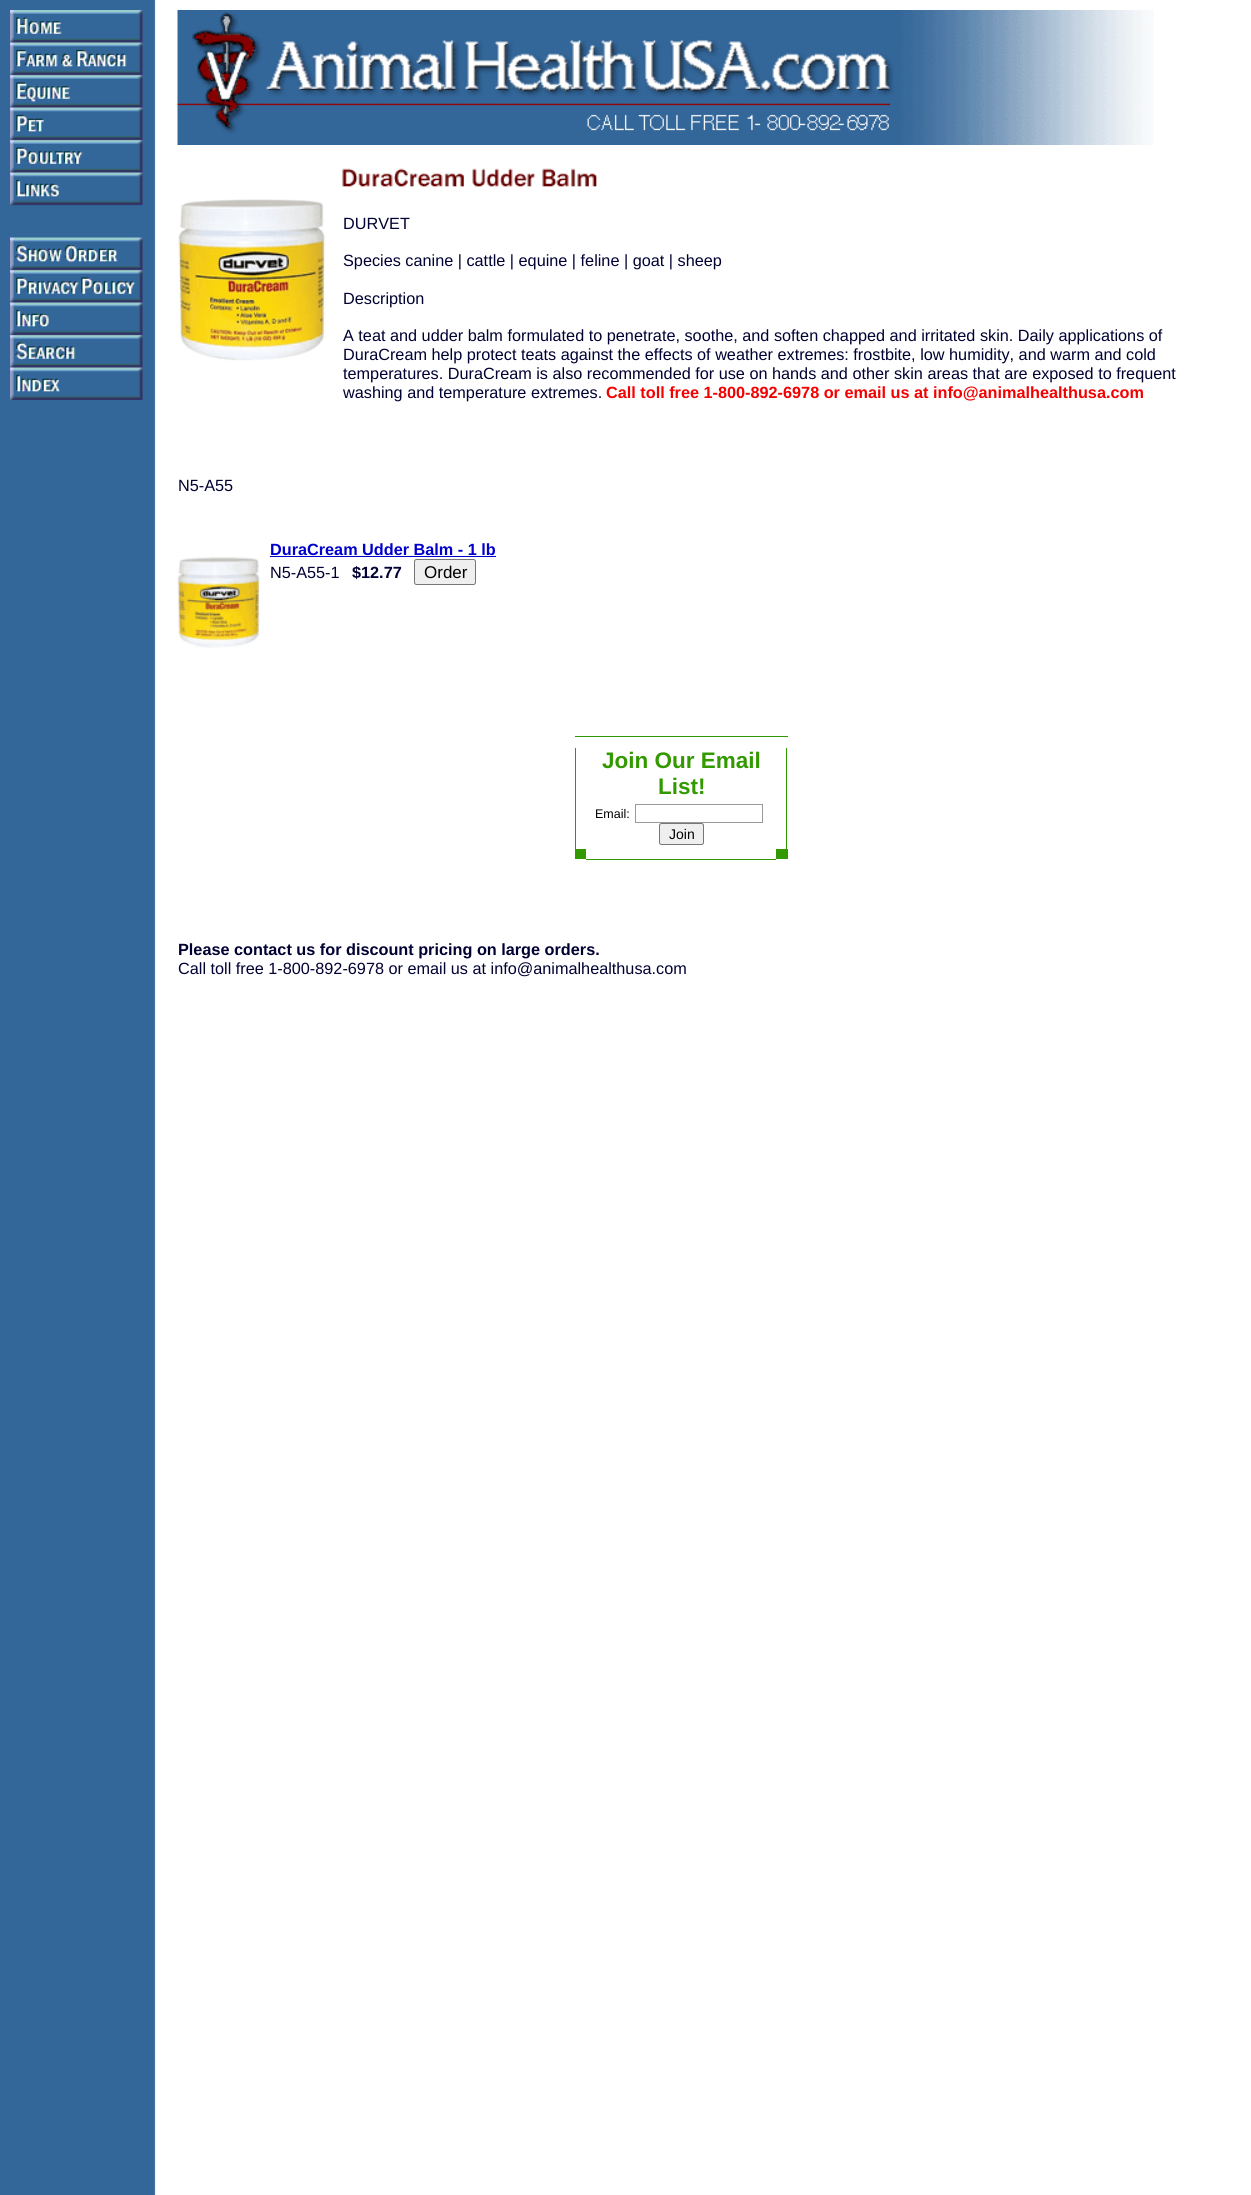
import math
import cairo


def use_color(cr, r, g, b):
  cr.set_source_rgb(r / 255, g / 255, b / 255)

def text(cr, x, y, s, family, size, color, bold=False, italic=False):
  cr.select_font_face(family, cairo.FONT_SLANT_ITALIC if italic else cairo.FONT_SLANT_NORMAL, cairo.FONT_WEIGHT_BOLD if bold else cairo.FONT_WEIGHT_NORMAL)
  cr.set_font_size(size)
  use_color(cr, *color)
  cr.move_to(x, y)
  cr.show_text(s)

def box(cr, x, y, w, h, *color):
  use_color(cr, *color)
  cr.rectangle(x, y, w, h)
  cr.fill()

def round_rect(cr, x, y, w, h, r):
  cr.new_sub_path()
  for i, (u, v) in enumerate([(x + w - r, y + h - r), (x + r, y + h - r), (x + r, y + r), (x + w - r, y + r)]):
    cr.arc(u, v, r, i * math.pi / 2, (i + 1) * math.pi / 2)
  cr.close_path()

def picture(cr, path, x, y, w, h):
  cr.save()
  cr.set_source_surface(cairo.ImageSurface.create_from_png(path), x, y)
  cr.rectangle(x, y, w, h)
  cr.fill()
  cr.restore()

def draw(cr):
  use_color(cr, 255, 255, 255)
  cr.paint()
  picture(cr, "img_01.png", 0, 0, 156, 2195)
  picture(cr, "img_02.png", 10, 10, 133, 390)
  picture(cr, "img_03.png", 177, 10, 977, 135)
  picture(cr, "img_04.png", 342, 168, 255, 19)
  picture(cr, "img_05.png", 178, 199, 148, 163)
  picture(cr, "img_06.png", 177, 557, 83, 91)
  box(cr, 270, 556, 226, 1, 0, 0, 204)
  use_color(cr, 239, 239, 239)
  round_rect(cr, 414.5, 559.5, 61, 25, 2)
  cr.fill_preserve()
  use_color(cr, 118, 118, 118)
  cr.set_line_width(1)
  cr.stroke()
  box(cr, 575, 736, 213, 1, 51, 153, 0)
  box(cr, 786, 748, 1, 101, 51, 153, 0)
  box(cr, 575, 748, 1, 101, 51, 153, 0)
  cr.rectangle(635.5, 804.5, 127, 18)
  use_color(cr, 153, 153, 153)
  cr.stroke()
  use_color(cr, 239, 239, 239)
  round_rect(cr, 659.5, 823.5, 44, 21, 2)
  cr.fill_preserve()
  use_color(cr, 118, 118, 118)
  cr.stroke()
  box(cr, 575, 849, 213, 10, 51, 153, 0)
  box(cr, 586, 849, 190, 10, 255, 255, 255)
  box(cr, 586, 859, 190, 1, 51, 153, 0)
  text(cr, 343, 229, "DURVET", "Liberation Sans", 16.25, (0, 0, 51))
  text(cr, 343, 266, "Species canine | cattle | equine | feline | goat | sheep", "Liberation Sans", 16.25, (0, 0, 51))
  text(cr, 343, 304, "Description", "Liberation Sans", 16.25, (0, 0, 51))
  text(cr, 343, 341, "A teat and udder balm formulated to penetrate, soothe, and soften chapped and irritated skin. Daily applications of", "Liberation Sans", 16.25, (0, 0, 51))
  text(cr, 343, 360, "DuraCream help protect teats against the effects of weather extremes: frostbite, low humidity, and warm and cold", "Liberation Sans", 16.25, (0, 0, 51))
  text(cr, 343, 379, "temperatures. DuraCream is also recommended for use on hands and other skin areas that are exposed to frequent", "Liberation Sans", 16.25, (0, 0, 51))
  text(cr, 343, 398, "washing and temperature extremes.", "Liberation Sans", 16.25, (0, 0, 51))
  text(cr, 606, 398, "Call toll free 1-800-892-6978 or email us at info@animalhealthusa.com", "Liberation Sans", 16.25, (245, 0, 0), bold=True)
  text(cr, 178, 491, "N5-A55", "Liberation Sans", 16.25, (0, 0, 51))
  text(cr, 270, 555, "DuraCream Udder Balm - 1 lb", "Liberation Sans", 16.25, (0, 0, 204), bold=True)
  text(cr, 270, 578, "N5-A55-1", "Liberation Sans", 16.25, (0, 0, 51))
  text(cr, 352, 578, "$12.77", "Liberation Sans", 16.25, (0, 0, 51), bold=True)
  text(cr, 424, 578, "Order", "Liberation Sans", 17, (0, 0, 0))
  text(cr, 602, 768, "Join Our Email", "Liberation Sans", 22.5, (51, 153, 0), bold=True)
  text(cr, 658, 794, "List!", "Liberation Sans", 22.5, (51, 153, 0), bold=True)
  text(cr, 595, 818, "Email:", "Liberation Sans", 12.5, (0, 0, 0))
  text(cr, 669, 839, "Join", "Liberation Sans", 14, (0, 0, 0))
  text(cr, 178, 955, "Please contact us for discount pricing on large orders.", "Liberation Sans", 16.25, (0, 0, 51), bold=True)
  text(cr, 178, 974, "Call toll free 1-800-892-6978 or email us at info@animalhealthusa.com", "Liberation Sans", 16.25, (0, 0, 51))


surface = cairo.ImageSurface(cairo.FORMAT_RGB24, 1251, 2195)
cr = cairo.Context(surface)
options = cairo.FontOptions()
options.set_hint_metrics(cairo.HINT_METRICS_OFF)
options.set_hint_style(cairo.HINT_STYLE_NONE)
cr.set_font_options(options)
cr.set_miter_limit(4)
draw(cr)
surface.write_to_png("out.png")
